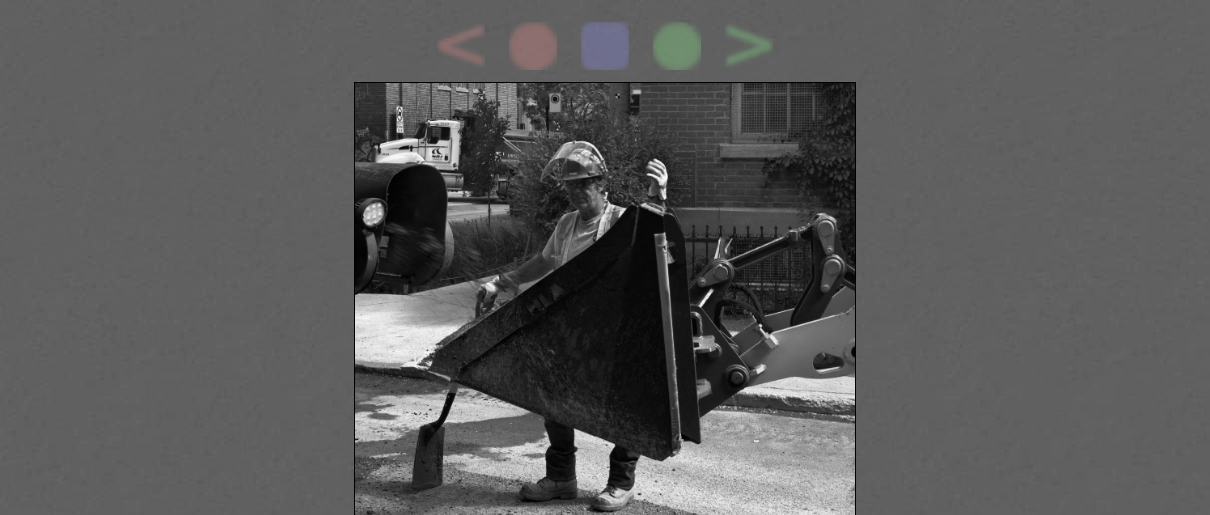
import math
import cairo


def use_color(cr, r, g, b):
  cr.set_source_rgb(r / 255, g / 255, b / 255)

def picture(cr, path, x, y, w, h):
  cr.save()
  cr.set_source_surface(cairo.ImageSurface.create_from_png(path), x, y)
  cr.rectangle(x, y, w, h)
  cr.fill()
  cr.restore()

def draw(cr):
  use_color(cr, 255, 255, 255)
  cr.paint()
  picture(cr, "img_01.png", 0, 0, 1210, 515)
  picture(cr, "img_02.png", 437, 23, 48, 45)
  picture(cr, "img_03.png", 509, 22, 48, 48)
  picture(cr, "img_04.png", 581, 22, 48, 48)
  picture(cr, "img_05.png", 653, 22, 48, 48)
  picture(cr, "img_06.png", 725, 23, 48, 45)
  cr.rectangle(354.5, 82.5, 501, 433)
  use_color(cr, 0, 0, 0)
  cr.set_line_width(1)
  cr.stroke()
  picture(cr, "img_07.png", 355, 83, 500, 432)


surface = cairo.ImageSurface(cairo.FORMAT_RGB24, 1210, 515)
cr = cairo.Context(surface)
options = cairo.FontOptions()
options.set_hint_metrics(cairo.HINT_METRICS_OFF)
options.set_hint_style(cairo.HINT_STYLE_NONE)
cr.set_font_options(options)
cr.set_miter_limit(4)
draw(cr)
surface.write_to_png("out.png")
